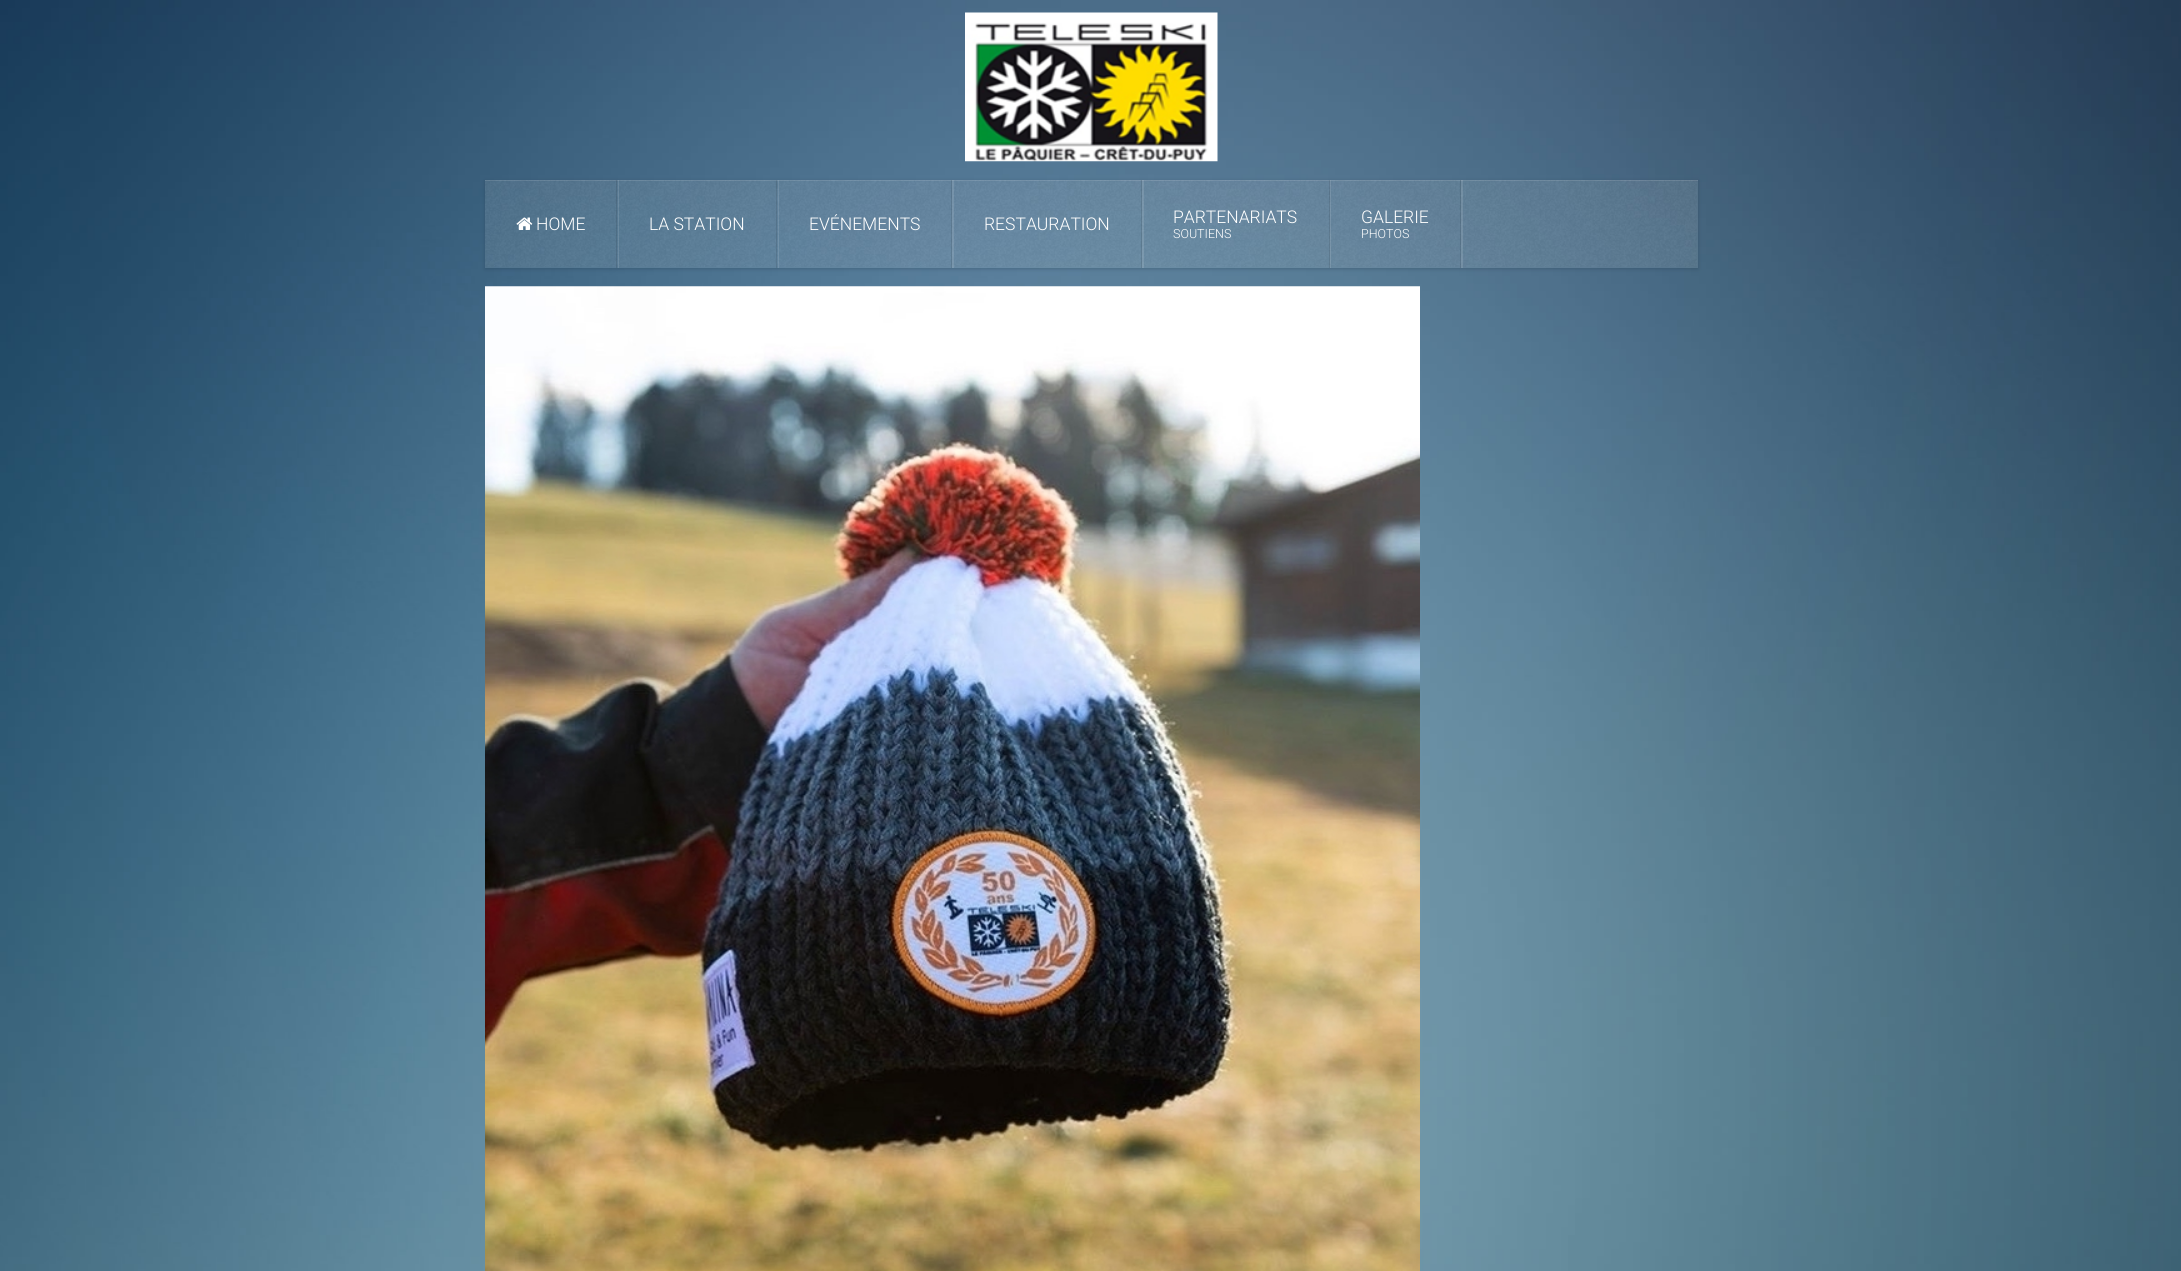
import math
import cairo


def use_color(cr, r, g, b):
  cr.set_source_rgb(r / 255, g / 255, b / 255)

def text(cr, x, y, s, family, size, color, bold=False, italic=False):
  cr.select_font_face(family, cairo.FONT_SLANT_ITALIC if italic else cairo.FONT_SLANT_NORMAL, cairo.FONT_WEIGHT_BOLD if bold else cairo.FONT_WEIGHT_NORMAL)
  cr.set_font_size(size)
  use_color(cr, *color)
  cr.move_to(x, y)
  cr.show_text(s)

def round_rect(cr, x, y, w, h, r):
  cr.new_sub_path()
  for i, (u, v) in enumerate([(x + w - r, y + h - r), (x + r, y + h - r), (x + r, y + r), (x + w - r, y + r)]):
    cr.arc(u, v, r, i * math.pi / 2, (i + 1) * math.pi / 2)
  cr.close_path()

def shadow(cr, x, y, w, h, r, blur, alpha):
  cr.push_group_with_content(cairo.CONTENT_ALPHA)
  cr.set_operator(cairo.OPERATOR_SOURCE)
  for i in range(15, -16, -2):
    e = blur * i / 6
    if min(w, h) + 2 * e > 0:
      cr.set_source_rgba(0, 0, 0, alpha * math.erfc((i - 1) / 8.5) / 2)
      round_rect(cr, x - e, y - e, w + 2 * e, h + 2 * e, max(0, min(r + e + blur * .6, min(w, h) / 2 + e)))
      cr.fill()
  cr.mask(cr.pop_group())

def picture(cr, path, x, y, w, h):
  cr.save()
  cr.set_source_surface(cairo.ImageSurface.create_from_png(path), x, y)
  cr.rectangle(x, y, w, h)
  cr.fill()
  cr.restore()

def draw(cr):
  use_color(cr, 255, 255, 255)
  cr.paint()
  picture(cr, "img_01.png", 0, 0, 2181, 1271)
  picture(cr, "img_02.png", 965, 12, 253, 150)
  cr.save()
  cr.set_fill_rule(cairo.FILL_RULE_EVEN_ODD)
  cr.new_path()
  cr.move_to(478, 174)
  cr.line_to(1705, 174)
  cr.line_to(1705, 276)
  cr.line_to(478, 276)
  cr.close_path()
  cr.move_to(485, 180)
  cr.line_to(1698, 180)
  cr.line_to(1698, 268)
  cr.line_to(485, 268)
  cr.close_path()
  cr.clip()
  use_color(cr, 30, 50, 70)
  shadow(cr, 485, 181, 1213, 88, 0, 2, 0.3)
  cr.restore()
  cr.set_source_rgba(1, 1, 1, 0.1)
  cr.rectangle(485, 180, 1213, 88)
  cr.fill()
  picture(cr, "img_03.png", 485, 180, 1212, 87)
  cr.set_source_rgba(1, 1, 1, 0.12)
  cr.rectangle(485, 180, 1213, 1)
  cr.fill()
  cr.new_path()
  cr.move_to(486, 268)
  cr.line_to(619, 268)
  cr.line_to(619, 180)
  cr.line_to(618, 180)
  cr.line_to(618, 268)
  cr.close_path()
  cr.fill()
  cr.set_source_rgba(0, 0, 0, 0.1)
  cr.rectangle(616, 180, 1, 88)
  cr.fill()
  picture(cr, "img_04.png", 516, 217, 17, 13)
  cr.set_source_rgba(1, 1, 1, 0.12)
  cr.new_path()
  cr.move_to(619, 268)
  cr.line_to(779, 268)
  cr.line_to(779, 180)
  cr.line_to(778, 180)
  cr.line_to(778, 268)
  cr.close_path()
  cr.fill()
  cr.set_source_rgba(0, 0, 0, 0.1)
  cr.rectangle(776, 180, 1, 88)
  cr.fill()
  cr.set_source_rgba(1, 1, 1, 0.12)
  cr.new_path()
  cr.move_to(779, 268)
  cr.line_to(954, 268)
  cr.line_to(954, 180)
  cr.line_to(952, 180)
  cr.line_to(952, 268)
  cr.close_path()
  cr.fill()
  cr.set_source_rgba(0, 0, 0, 0.1)
  cr.rectangle(951, 180, 1, 88)
  cr.fill()
  cr.set_source_rgba(1, 1, 1, 0.12)
  cr.new_path()
  cr.move_to(954, 268)
  cr.line_to(1144, 268)
  cr.line_to(1144, 180)
  cr.line_to(1142, 180)
  cr.line_to(1142, 268)
  cr.close_path()
  cr.fill()
  cr.set_source_rgba(0, 0, 0, 0.1)
  cr.rectangle(1141, 180, 1, 88)
  cr.fill()
  cr.set_source_rgba(1, 1, 1, 0.12)
  cr.new_path()
  cr.move_to(1144, 268)
  cr.line_to(1331, 268)
  cr.line_to(1331, 180)
  cr.line_to(1330, 180)
  cr.line_to(1330, 268)
  cr.close_path()
  cr.fill()
  cr.set_source_rgba(0, 0, 0, 0.1)
  cr.rectangle(1329, 180, 1, 88)
  cr.fill()
  cr.set_source_rgba(1, 1, 1, 0.12)
  cr.new_path()
  cr.move_to(1331, 268)
  cr.line_to(1463, 268)
  cr.line_to(1463, 180)
  cr.line_to(1461, 180)
  cr.line_to(1461, 268)
  cr.close_path()
  cr.fill()
  cr.set_source_rgba(0, 0, 0, 0.1)
  cr.rectangle(1460, 180, 1, 88)
  cr.fill()
  picture(cr, "img_05.png", 485, 286, 935, 985)
  text(cr, 536, 230, "HOME", "Roboto Light", 17.5, (255, 255, 255))
  text(cr, 649, 230, "LA STATION", "Roboto Light", 17.5, (255, 255, 255))
  text(cr, 809, 230, "EVÉNEMENTS", "Roboto Light", 17.5, (255, 255, 255))
  text(cr, 984, 230, "RESTAURATION", "Roboto Light", 17.5, (255, 255, 255))
  text(cr, 1173, 223, "PARTENARIATS", "Roboto Light", 17.5, (255, 255, 255))
  text(cr, 1173, 238, "SOUTIENS", "Roboto Light", 12.5, (255, 255, 255))
  text(cr, 1361, 223, "GALERIE", "Roboto Light", 17.5, (255, 255, 255))
  text(cr, 1361, 238, "PHOTOS", "Roboto Light", 12.5, (255, 255, 255))


surface = cairo.ImageSurface(cairo.FORMAT_RGB24, 2181, 1271)
cr = cairo.Context(surface)
options = cairo.FontOptions()
options.set_hint_metrics(cairo.HINT_METRICS_OFF)
options.set_hint_style(cairo.HINT_STYLE_NONE)
cr.set_font_options(options)
cr.set_miter_limit(4)
draw(cr)
surface.write_to_png("out.png")
